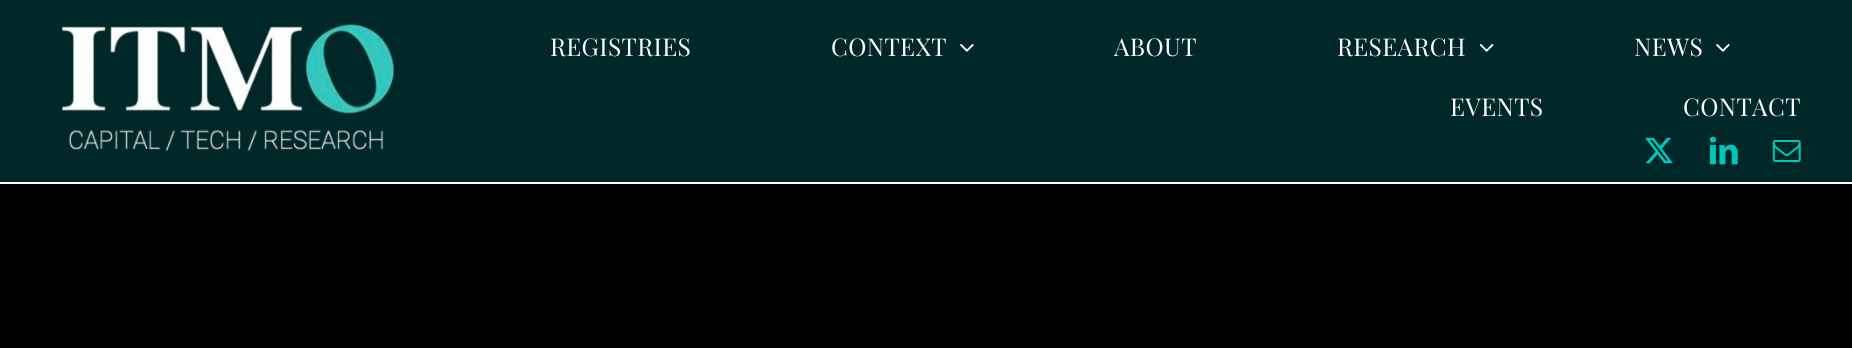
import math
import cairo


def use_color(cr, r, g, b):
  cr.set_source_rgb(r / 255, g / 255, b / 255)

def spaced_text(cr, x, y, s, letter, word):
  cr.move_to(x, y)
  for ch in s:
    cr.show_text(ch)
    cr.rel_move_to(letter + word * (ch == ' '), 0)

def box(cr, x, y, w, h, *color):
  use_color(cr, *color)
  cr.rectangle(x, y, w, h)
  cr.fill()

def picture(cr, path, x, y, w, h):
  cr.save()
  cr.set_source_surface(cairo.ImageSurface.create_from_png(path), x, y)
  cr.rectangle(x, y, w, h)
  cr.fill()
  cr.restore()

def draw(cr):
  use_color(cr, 255, 255, 255)
  cr.paint()
  box(cr, 0, 0, 1852, 182, 0, 40, 40)
  picture(cr, "img_01.png", 60, 17, 343, 141)
  picture(cr, "img_02.png", 960, 44, 14, 8)
  picture(cr, "img_03.png", 1479, 44, 15, 8)
  picture(cr, "img_02.png", 1716, 44, 14, 8)
  picture(cr, "img_04.png", 1645, 137, 28, 27)
  picture(cr, "img_05.png", 1709, 136, 29, 29)
  picture(cr, "img_06.png", 1772, 140, 29, 22)
  box(cr, 0, 184, 1852, 164, 0, 0, 0)
  cr.select_font_face("Playfair Display")
  cr.set_font_size(24.5)
  use_color(cr, 255, 255, 255)
  spaced_text(cr, 550, 56, "REGISTRIES", 0.4, 0)
  spaced_text(cr, 831, 56, "CONTEXT", 0.4, 0)
  spaced_text(cr, 1114, 56, "ABOUT", 0.4, 0)
  spaced_text(cr, 1337, 56, "RESEARCH", 0.4, 0)
  spaced_text(cr, 1634, 56, "NEWS", 0.4, 0)
  spaced_text(cr, 1450, 116, "EVENTS", 0.4, 0)
  spaced_text(cr, 1683, 116, "CONTACT", 0.4, 0)


surface = cairo.ImageSurface(cairo.FORMAT_RGB24, 1852, 348)
cr = cairo.Context(surface)
options = cairo.FontOptions()
options.set_hint_metrics(cairo.HINT_METRICS_OFF)
options.set_hint_style(cairo.HINT_STYLE_NONE)
cr.set_font_options(options)
cr.set_miter_limit(4)
draw(cr)
surface.write_to_png("out.png")
